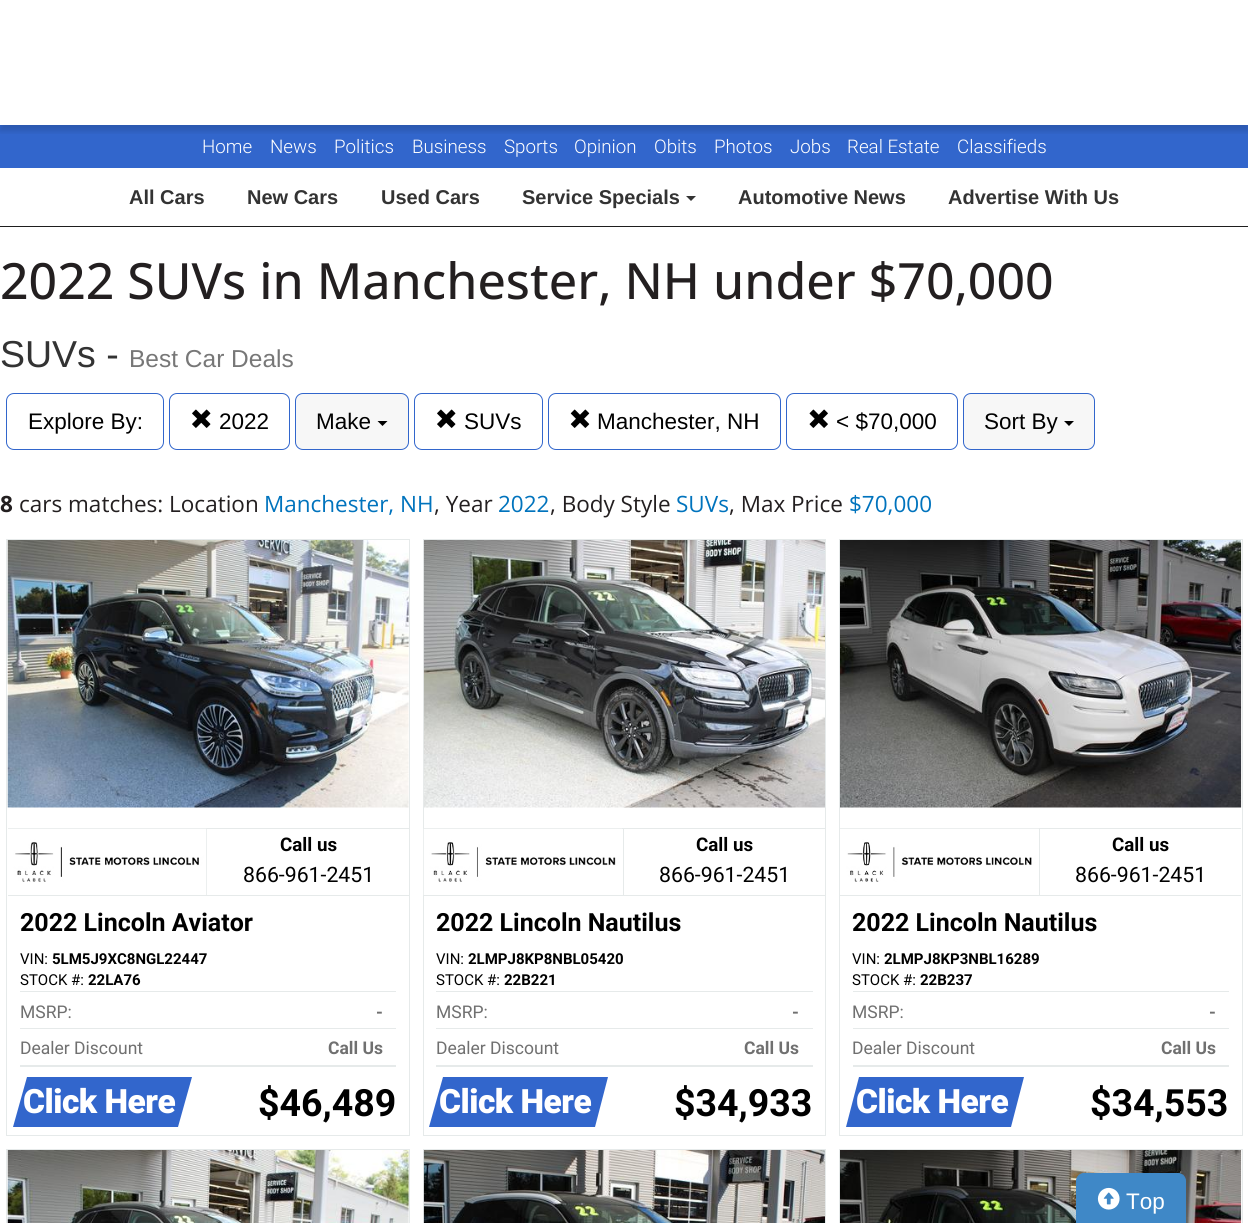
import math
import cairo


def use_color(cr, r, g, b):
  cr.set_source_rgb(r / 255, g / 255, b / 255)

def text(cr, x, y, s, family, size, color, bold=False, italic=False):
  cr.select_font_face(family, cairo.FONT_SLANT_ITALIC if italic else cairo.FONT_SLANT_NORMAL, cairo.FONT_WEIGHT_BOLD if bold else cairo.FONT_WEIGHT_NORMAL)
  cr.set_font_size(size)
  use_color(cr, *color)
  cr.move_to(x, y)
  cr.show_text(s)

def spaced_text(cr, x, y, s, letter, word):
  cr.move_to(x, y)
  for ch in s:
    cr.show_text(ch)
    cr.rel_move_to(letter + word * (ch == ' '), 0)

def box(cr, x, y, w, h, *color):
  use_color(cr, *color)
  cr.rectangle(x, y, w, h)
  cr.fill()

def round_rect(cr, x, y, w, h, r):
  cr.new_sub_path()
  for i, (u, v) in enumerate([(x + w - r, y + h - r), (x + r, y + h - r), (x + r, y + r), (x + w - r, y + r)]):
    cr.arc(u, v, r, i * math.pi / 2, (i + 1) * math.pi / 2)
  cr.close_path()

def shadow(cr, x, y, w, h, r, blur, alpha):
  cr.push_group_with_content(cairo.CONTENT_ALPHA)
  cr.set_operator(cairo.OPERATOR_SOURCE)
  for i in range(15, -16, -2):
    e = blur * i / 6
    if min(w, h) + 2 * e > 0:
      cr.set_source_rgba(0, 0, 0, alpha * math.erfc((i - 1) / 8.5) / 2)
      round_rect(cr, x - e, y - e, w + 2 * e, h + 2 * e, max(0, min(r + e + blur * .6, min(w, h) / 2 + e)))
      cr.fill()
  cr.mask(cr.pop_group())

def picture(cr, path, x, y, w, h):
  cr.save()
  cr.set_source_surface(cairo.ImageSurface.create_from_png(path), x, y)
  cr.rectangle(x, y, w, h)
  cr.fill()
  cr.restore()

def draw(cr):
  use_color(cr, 255, 255, 255)
  cr.paint()
  box(cr, 0, 125, 1248, 43, 50, 102, 204)
  cr.save()
  cr.rectangle(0, 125, 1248, 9)
  cr.clip()
  use_color(cr, 0, 0, 0)
  shadow(cr, 0, 6, 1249, 125, 0, 3, 0.14)
  cr.restore()
  box(cr, 0, 226, 1248, 1, 30, 30, 30)
  use_color(cr, 51, 51, 51)
  cr.new_path()
  cr.move_to(686, 196)
  cr.line_to(696, 196)
  cr.line_to(691, 201)
  cr.close_path()
  cr.fill()
  round_rect(cr, 6.5, 393.5, 157, 56, 7.5)
  use_color(cr, 50, 102, 204)
  cr.set_line_width(1)
  cr.stroke()
  round_rect(cr, 169.5, 393.5, 120, 56, 7.5)
  cr.stroke()
  picture(cr, "img_01.png", 192, 409, 19, 19)
  use_color(cr, 247, 247, 247)
  round_rect(cr, 295.5, 393.5, 113, 56, 7.5)
  cr.fill_preserve()
  use_color(cr, 50, 102, 204)
  cr.stroke()
  use_color(cr, 0, 0, 0)
  cr.new_path()
  cr.move_to(377.5, 421)
  cr.line_to(387.5, 421)
  cr.line_to(382.5, 426)
  cr.close_path()
  cr.fill()
  round_rect(cr, 414.5, 393.5, 128, 56, 7.5)
  use_color(cr, 50, 102, 204)
  cr.stroke()
  picture(cr, "img_01.png", 437, 409, 19, 19)
  round_rect(cr, 548.5, 393.5, 232, 56, 7.5)
  cr.stroke()
  picture(cr, "img_02.png", 570, 409, 20, 19)
  round_rect(cr, 786.5, 393.5, 171, 56, 7.5)
  cr.stroke()
  picture(cr, "img_03.png", 809, 409, 19, 19)
  use_color(cr, 247, 247, 247)
  round_rect(cr, 963.5, 393.5, 131, 56, 7.5)
  cr.fill_preserve()
  use_color(cr, 50, 102, 204)
  cr.stroke()
  use_color(cr, 0, 0, 0)
  cr.new_path()
  cr.move_to(1064, 421)
  cr.line_to(1074, 421)
  cr.line_to(1069, 426)
  cr.close_path()
  cr.fill()
  cr.rectangle(6.5, 539.5, 403, 596)
  use_color(cr, 230, 234, 234)
  cr.stroke()
  picture(cr, "img_04.png", 7, 540, 402, 268)
  box(cr, 8, 828, 401, 1, 230, 234, 234)
  box(cr, 206, 828, 1, 68, 230, 234, 234)
  box(cr, 8, 895, 401, 1, 230, 234, 234)
  picture(cr, "img_05.png", 8, 828, 199, 67)
  box(cr, 20, 991, 376, 1, 230, 234, 234)
  box(cr, 20, 1028, 376, 1, 230, 234, 234)
  box(cr, 20, 1065, 376, 2, 230, 234, 234)
  use_color(cr, 50, 102, 204)
  cr.new_path()
  cr.move_to(27, 1077)
  cr.line_to(192, 1077)
  cr.line_to(178, 1127)
  cr.line_to(13, 1127)
  cr.close_path()
  cr.fill()
  cr.rectangle(423.5, 539.5, 402, 596)
  use_color(cr, 230, 234, 234)
  cr.stroke()
  picture(cr, "img_06.png", 423, 540, 402, 268)
  box(cr, 424, 828, 401, 1, 230, 234, 234)
  box(cr, 623, 828, 1, 68, 230, 234, 234)
  box(cr, 424, 895, 401, 1, 230, 234, 234)
  picture(cr, "img_07.png", 423, 828, 199, 67)
  box(cr, 436, 991, 377, 1, 230, 234, 234)
  box(cr, 436, 1028, 377, 1, 230, 234, 234)
  box(cr, 436, 1065, 377, 2, 230, 234, 234)
  use_color(cr, 50, 102, 204)
  cr.new_path()
  cr.move_to(443, 1077)
  cr.line_to(608, 1077)
  cr.line_to(595, 1127)
  cr.line_to(429, 1127)
  cr.close_path()
  cr.fill()
  cr.rectangle(839.5, 539.5, 403, 596)
  use_color(cr, 230, 234, 234)
  cr.stroke()
  picture(cr, "img_08.png", 840, 540, 402, 268)
  box(cr, 840, 828, 401, 1, 230, 234, 234)
  box(cr, 1039, 828, 1, 68, 230, 234, 234)
  box(cr, 840, 895, 401, 1, 230, 234, 234)
  picture(cr, "img_09.png", 840, 828, 199, 54)
  box(cr, 853, 991, 376, 1, 230, 234, 234)
  box(cr, 853, 1028, 376, 1, 230, 234, 234)
  box(cr, 853, 1065, 376, 2, 230, 234, 234)
  use_color(cr, 50, 102, 204)
  cr.new_path()
  cr.move_to(859, 1077)
  cr.line_to(1024, 1077)
  cr.line_to(1011, 1127)
  cr.line_to(846, 1127)
  cr.close_path()
  cr.fill()
  cr.rectangle(6.5, 1149.5, 403, 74)
  use_color(cr, 230, 234, 234)
  cr.stroke()
  picture(cr, "img_10.png", 7, 1150, 402, 73)
  cr.rectangle(423.5, 1149.5, 402, 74)
  cr.stroke()
  picture(cr, "img_11.png", 423, 1150, 402, 73)
  cr.rectangle(839.5, 1149.5, 403, 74)
  cr.stroke()
  picture(cr, "img_12.png", 840, 1150, 402, 73)
  use_color(cr, 63, 136, 199)
  round_rect(cr, 1076.5, 1173.5, 109, 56, 7.5)
  cr.fill_preserve()
  cr.stroke()
  picture(cr, "img_13.png", 1097, 1187, 23, 23)
  text(cr, 202, 153, "Home", "Roboto Light", 18.75, (255, 255, 255))
  text(cr, 270, 153, "News", "Roboto Light", 18.75, (255, 255, 255))
  text(cr, 334, 153, "Politics", "Roboto Light", 18.75, (255, 255, 255))
  text(cr, 412, 153, "Business", "Roboto Light", 18.75, (255, 255, 255))
  text(cr, 504, 153, "Sports", "Roboto Light", 18.75, (255, 255, 255))
  text(cr, 574, 153, "Opinion", "Roboto Light", 18.75, (255, 255, 255))
  text(cr, 654, 153, "Obits", "Roboto Light", 18.75, (255, 255, 255))
  text(cr, 714, 153, "Photos", "Roboto Light", 18.75, (255, 255, 255))
  text(cr, 790, 153, "Jobs", "Roboto Light", 18.75, (255, 255, 255))
  text(cr, 847, 153, "Real Estate", "Roboto Light", 18.75, (255, 255, 255))
  text(cr, 957, 153, "Classifieds", "Roboto Light", 18.75, (255, 255, 255))
  text(cr, 129, 204, "All Cars", "Liberation Sans", 20, (51, 51, 51), bold=True)
  text(cr, 247, 204, "New Cars", "Liberation Sans", 20, (51, 51, 51), bold=True)
  text(cr, 381, 204, "Used Cars", "Liberation Sans", 20, (51, 51, 51), bold=True)
  text(cr, 522, 204, "Service Specials", "Liberation Sans", 20, (51, 51, 51), bold=True)
  text(cr, 738, 204, "Automotive News", "Liberation Sans", 20, (51, 51, 51), bold=True)
  text(cr, 948, 204, "Advertise With Us", "Liberation Sans", 20, (51, 51, 51), bold=True)
  text(cr, 0, 299, "2022 SUVs in Manchester, NH under $70,000", "Open Sans Medium", 50, (35, 31, 32))
  text(cr, 0, 367, "SUVs -", "Liberation Sans", 37.5, (51, 51, 51))
  text(cr, 129, 367, "Best Car Deals", "Liberation Sans", 24.5, (119, 119, 119))
  text(cr, 28, 429, "Explore By:", "Liberation Sans", 22.5, (0, 0, 0))
  text(cr, 219, 429, "2022", "Liberation Sans", 22.5, (0, 0, 0))
  text(cr, 316, 429, "Make", "Liberation Sans", 22.5, (0, 0, 0))
  text(cr, 464, 429, "SUVs", "Liberation Sans", 22.5, (0, 0, 0))
  text(cr, 597, 429, "Manchester, NH", "Liberation Sans", 22.5, (0, 0, 0))
  text(cr, 836, 429, "< $70,000", "Liberation Sans", 22.5, (0, 0, 0))
  text(cr, 984, 429, "Sort By", "Liberation Sans", 22.5, (0, 0, 0))
  text(cr, 0, 512, "8", "Open Sans", 22.5, (35, 31, 32), bold=True)
  text(cr, 19, 512, "cars matches: Location", "Open Sans", 22.5, (35, 31, 32))
  text(cr, 264, 512, "Manchester, NH", "Open Sans", 22.5, (0, 115, 189))
  text(cr, 434, 512, ", Year", "Open Sans", 22.5, (35, 31, 32))
  text(cr, 498, 512, "2022", "Open Sans", 22.5, (0, 115, 189))
  text(cr, 550, 512, ", Body Style", "Open Sans", 22.5, (35, 31, 32))
  text(cr, 676, 512, "SUVs", "Open Sans", 22.5, (0, 115, 189))
  text(cr, 729, 512, ", Max Price", "Open Sans", 22.5, (35, 31, 32))
  text(cr, 849, 512, "$70,000", "Open Sans", 22.5, (0, 115, 189))
  text(cr, 280, 851, "Call us", "Roboto", 18.75, (0, 0, 0), bold=True)
  text(cr, 243, 882, "866-961-2451", "Roboto", 21.25, (0, 0, 0))
  text(cr, 20, 931, "2022 Lincoln Aviator", "Roboto", 25, (0, 0, 0), bold=True)
  text(cr, 20, 964, "VIN:", "Roboto", 15, (0, 0, 0))
  text(cr, 52, 964, "5LM5J9XC8NGL22447", "Roboto", 15, (0, 0, 0), bold=True)
  text(cr, 20, 985, "STOCK #:", "Roboto", 15, (0, 0, 0))
  text(cr, 88, 985, "22LA76", "Roboto", 15, (0, 0, 0), bold=True)
  text(cr, 20, 1018, "MSRP:", "Roboto", 17.5, (112, 112, 112))
  text(cr, 376, 1018, "-", "Roboto", 17.5, (112, 112, 112), bold=True)
  text(cr, 20, 1054, "Dealer Discount", "Roboto", 17.5, (112, 112, 112))
  text(cr, 328, 1054, "Call Us", "Roboto", 17.5, (112, 112, 112), bold=True)
  cr.select_font_face("Roboto Black")
  cr.set_font_size(33.5)
  use_color(cr, 255, 255, 255)
  spaced_text(cr, 23, 1113, "Click Here", -0.5, 0)
  text(cr, 258, 1116, "$46,489", "Roboto", 37.5, (0, 0, 0), bold=True)
  text(cr, 696, 851, "Call us", "Roboto", 18.75, (0, 0, 0), bold=True)
  text(cr, 659, 882, "866-961-2451", "Roboto", 21.25, (0, 0, 0))
  text(cr, 436, 931, "2022 Lincoln Nautilus", "Roboto", 25, (0, 0, 0), bold=True)
  text(cr, 436, 964, "VIN:", "Roboto", 15, (0, 0, 0))
  text(cr, 468, 964, "2LMPJ8KP8NBL05420", "Roboto", 15, (0, 0, 0), bold=True)
  text(cr, 436, 985, "STOCK #:", "Roboto", 15, (0, 0, 0))
  text(cr, 504, 985, "22B221", "Roboto", 15, (0, 0, 0), bold=True)
  text(cr, 436, 1018, "MSRP:", "Roboto", 17.5, (112, 112, 112))
  text(cr, 792, 1018, "-", "Roboto", 17.5, (112, 112, 112), bold=True)
  text(cr, 436, 1054, "Dealer Discount", "Roboto", 17.5, (112, 112, 112))
  text(cr, 744, 1054, "Call Us", "Roboto", 17.5, (112, 112, 112), bold=True)
  cr.select_font_face("Roboto Black")
  cr.set_font_size(33.5)
  use_color(cr, 255, 255, 255)
  spaced_text(cr, 439, 1113, "Click Here", -0.5, 0)
  text(cr, 674, 1116, "$34,933", "Roboto", 37.5, (0, 0, 0), bold=True)
  text(cr, 1112, 851, "Call us", "Roboto", 18.75, (0, 0, 0), bold=True)
  text(cr, 1075, 882, "866-961-2451", "Roboto", 21.25, (0, 0, 0))
  text(cr, 852, 931, "2022 Lincoln Nautilus", "Roboto", 25, (0, 0, 0), bold=True)
  text(cr, 852, 964, "VIN:", "Roboto", 15, (0, 0, 0))
  text(cr, 884, 964, "2LMPJ8KP3NBL16289", "Roboto", 15, (0, 0, 0), bold=True)
  text(cr, 852, 985, "STOCK #:", "Roboto", 15, (0, 0, 0))
  text(cr, 920, 985, "22B237", "Roboto", 15, (0, 0, 0), bold=True)
  text(cr, 852, 1018, "MSRP:", "Roboto", 17.5, (112, 112, 112))
  text(cr, 1209, 1018, "-", "Roboto", 17.5, (112, 112, 112), bold=True)
  text(cr, 852, 1054, "Dealer Discount", "Roboto", 17.5, (112, 112, 112))
  text(cr, 1161, 1054, "Call Us", "Roboto", 17.5, (112, 112, 112), bold=True)
  cr.select_font_face("Roboto Black")
  cr.set_font_size(33.5)
  use_color(cr, 255, 255, 255)
  spaced_text(cr, 856, 1113, "Click Here", -0.5, 0)
  text(cr, 1090, 1116, "$34,553", "Roboto", 37.5, (0, 0, 0), bold=True)
  text(cr, 1126, 1209, "Top", "Liberation Sans", 22.5, (255, 255, 255))


surface = cairo.ImageSurface(cairo.FORMAT_RGB24, 1248, 1223)
cr = cairo.Context(surface)
options = cairo.FontOptions()
options.set_hint_metrics(cairo.HINT_METRICS_OFF)
options.set_hint_style(cairo.HINT_STYLE_NONE)
cr.set_font_options(options)
cr.set_miter_limit(4)
draw(cr)
surface.write_to_png("out.png")
